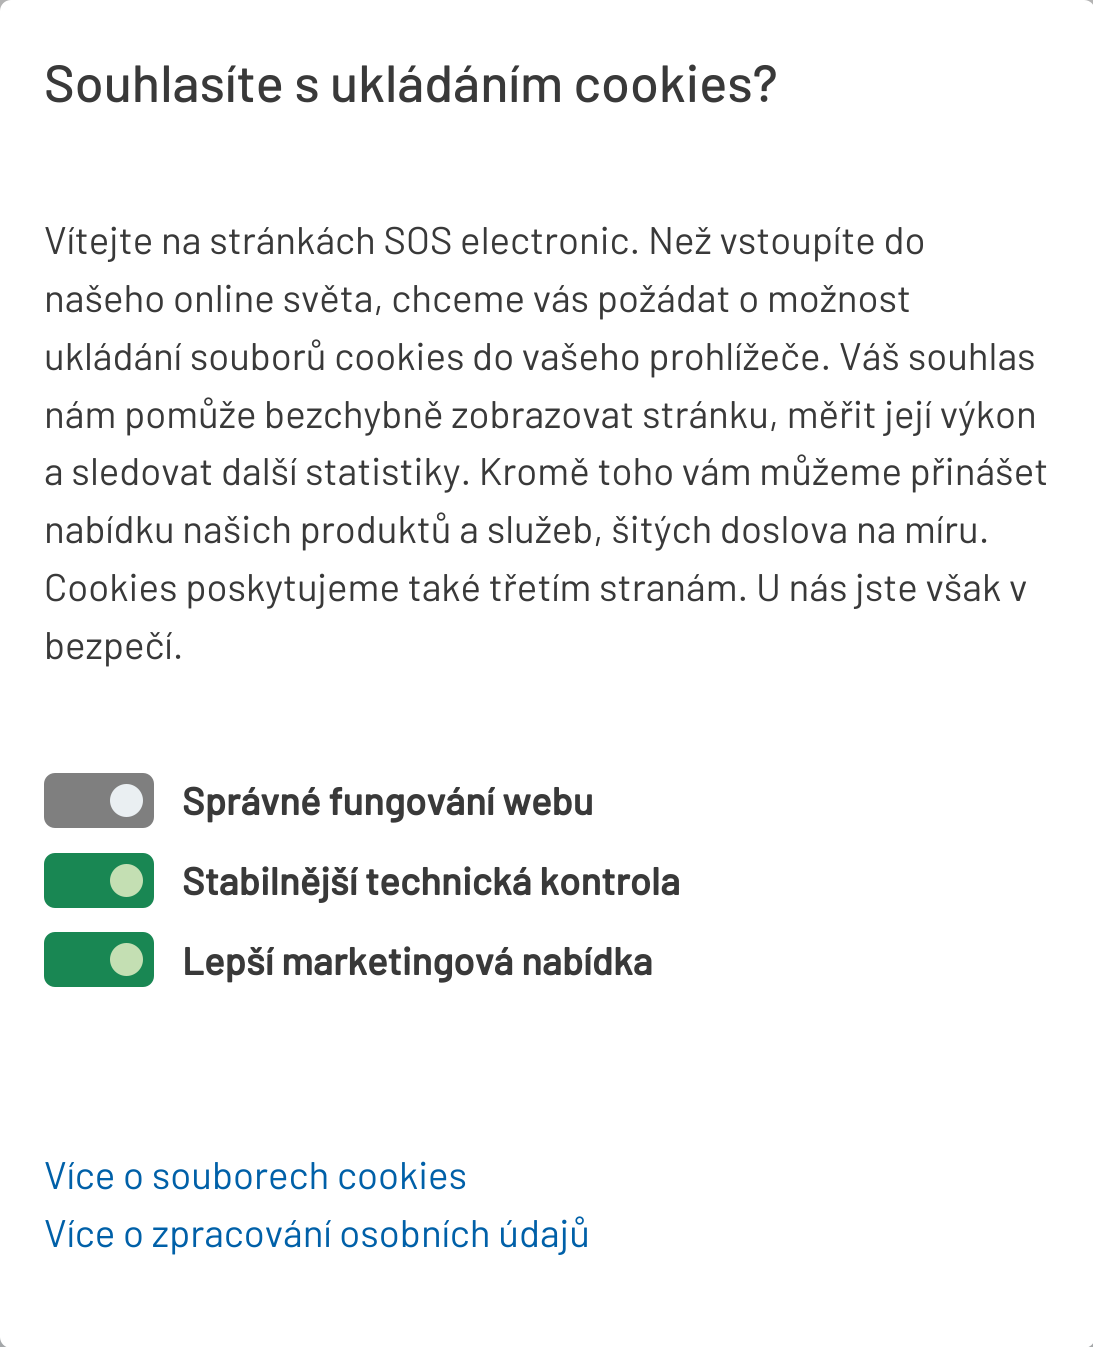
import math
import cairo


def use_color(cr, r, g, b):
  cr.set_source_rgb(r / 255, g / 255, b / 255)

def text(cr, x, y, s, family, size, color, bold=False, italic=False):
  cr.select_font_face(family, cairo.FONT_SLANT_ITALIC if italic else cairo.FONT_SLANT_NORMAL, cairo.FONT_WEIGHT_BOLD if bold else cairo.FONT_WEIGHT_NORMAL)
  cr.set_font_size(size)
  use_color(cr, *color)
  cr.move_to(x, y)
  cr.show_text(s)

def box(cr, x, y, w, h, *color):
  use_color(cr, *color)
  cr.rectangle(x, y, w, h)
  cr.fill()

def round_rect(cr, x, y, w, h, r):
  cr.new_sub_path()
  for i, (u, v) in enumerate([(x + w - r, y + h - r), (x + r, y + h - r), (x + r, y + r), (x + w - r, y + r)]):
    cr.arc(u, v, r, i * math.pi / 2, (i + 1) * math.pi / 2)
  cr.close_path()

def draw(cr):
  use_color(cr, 164, 167, 169)
  cr.paint()
  box(cr, 0, 0, 1093, 11, 179, 179, 179)
  use_color(cr, 255, 255, 255)
  round_rect(cr, 0, 0, 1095, 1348, 11)
  cr.fill()
  use_color(cr, 127, 127, 127)
  round_rect(cr, 44, 773, 110, 55, 11)
  cr.fill()
  use_color(cr, 234, 239, 242)
  cr.arc(126.5, 800.5, 16.5, 0, 2 * math.pi)
  cr.fill()
  use_color(cr, 25, 135, 83)
  round_rect(cr, 44, 853, 110, 55, 11)
  cr.fill()
  use_color(cr, 196, 223, 179)
  cr.arc(126.5, 880.5, 16.5, 0, 2 * math.pi)
  cr.fill()
  use_color(cr, 25, 135, 83)
  round_rect(cr, 44, 932, 110, 55, 11)
  cr.fill()
  use_color(cr, 196, 223, 179)
  cr.arc(126.5, 959.5, 16.5, 0, 2 * math.pi)
  cr.fill()
  text(cr, 44, 102, "Souhlasíte s ukládáním cookies?", "Barlow Medium", 52.25, (57, 57, 57))
  text(cr, 44, 254, "Vítejte na stránkách SOS electronic. Než vstoupíte do", "Barlow", 38.5, (57, 57, 57))
  text(cr, 44, 312, "našeho online světa, chceme vás požádat o možnost", "Barlow", 38.5, (57, 57, 57))
  text(cr, 44, 370, "ukládání souborů cookies do vašeho prohlížeče. Váš souhlas", "Barlow", 38.5, (57, 57, 57))
  text(cr, 44, 428, "nám pomůže bezchybně zobrazovat stránku, měřit její výkon", "Barlow", 38.5, (57, 57, 57))
  text(cr, 44, 485, "a sledovat další statistiky. Kromě toho vám můžeme přinášet", "Barlow", 38.5, (57, 57, 57))
  text(cr, 44, 543, "nabídku našich produktů a služeb, šitých doslova na míru.", "Barlow", 38.5, (57, 57, 57))
  text(cr, 44, 601, "Cookies poskytujeme také třetím stranám. U nás jste však v", "Barlow", 38.5, (57, 57, 57))
  text(cr, 44, 659, "bezpečí.", "Barlow", 38.5, (57, 57, 57))
  text(cr, 182, 815, "Správné fungování webu", "Barlow", 38.5, (57, 57, 57), bold=True)
  text(cr, 182, 895, "Stabilnější technická kontrola", "Barlow", 38.5, (57, 57, 57), bold=True)
  text(cr, 182, 975, "Lepší marketingová nabídka", "Barlow", 38.5, (57, 57, 57), bold=True)
  text(cr, 44, 1189, "Více o souborech cookies", "Barlow", 38.5, (0, 96, 168))
  text(cr, 44, 1247, "Více o zpracování osobních údajů", "Barlow", 38.5, (0, 96, 168))


surface = cairo.ImageSurface(cairo.FORMAT_RGB24, 1093, 1347)
cr = cairo.Context(surface)
options = cairo.FontOptions()
options.set_hint_metrics(cairo.HINT_METRICS_OFF)
options.set_hint_style(cairo.HINT_STYLE_NONE)
cr.set_font_options(options)
cr.set_miter_limit(4)
draw(cr)
surface.write_to_png("out.png")
